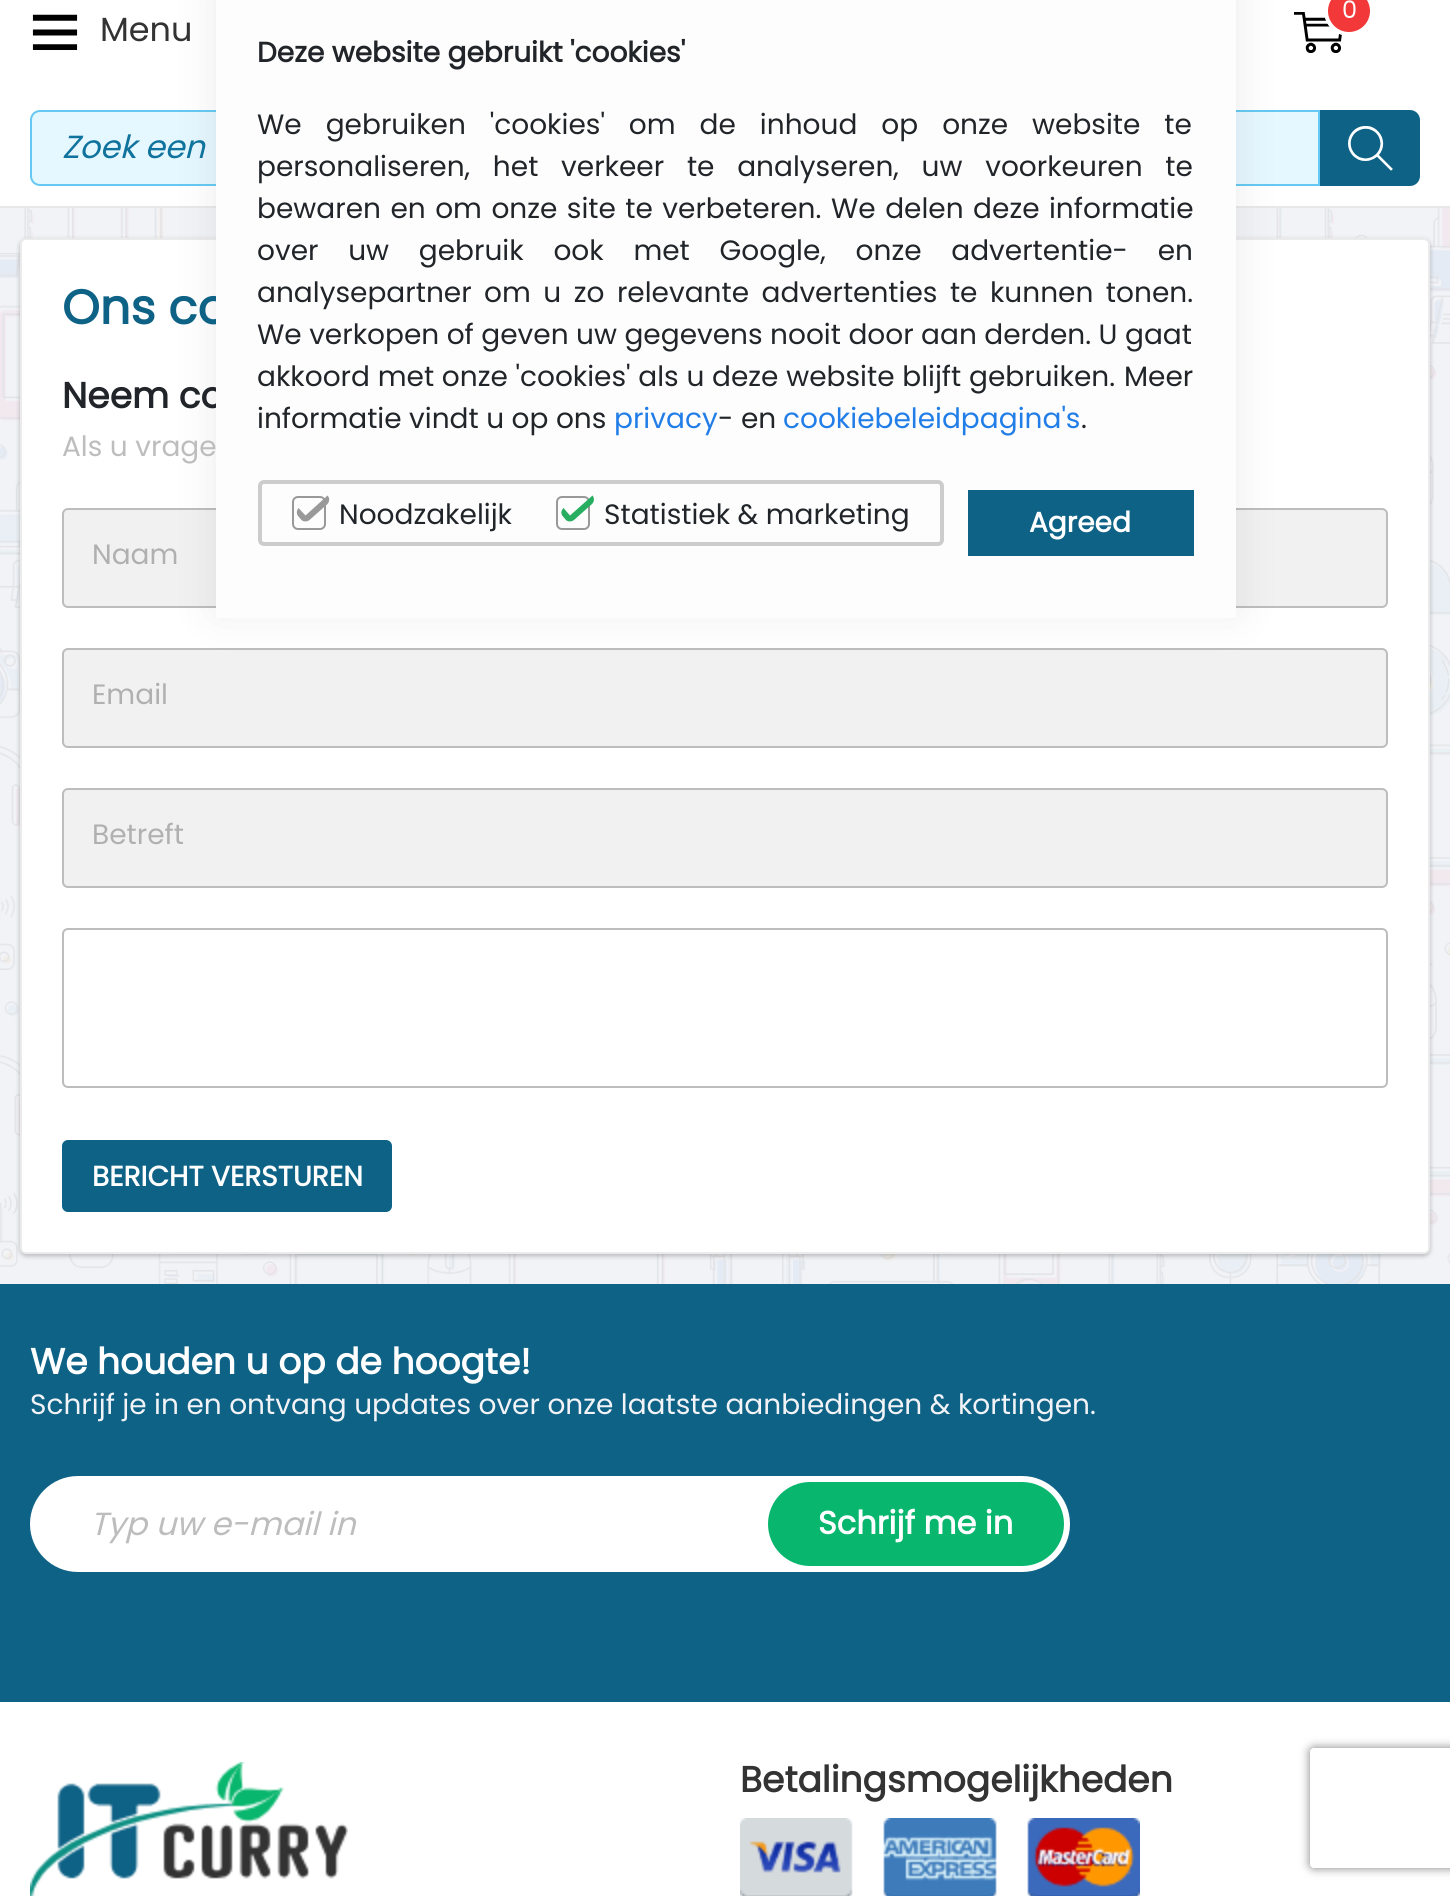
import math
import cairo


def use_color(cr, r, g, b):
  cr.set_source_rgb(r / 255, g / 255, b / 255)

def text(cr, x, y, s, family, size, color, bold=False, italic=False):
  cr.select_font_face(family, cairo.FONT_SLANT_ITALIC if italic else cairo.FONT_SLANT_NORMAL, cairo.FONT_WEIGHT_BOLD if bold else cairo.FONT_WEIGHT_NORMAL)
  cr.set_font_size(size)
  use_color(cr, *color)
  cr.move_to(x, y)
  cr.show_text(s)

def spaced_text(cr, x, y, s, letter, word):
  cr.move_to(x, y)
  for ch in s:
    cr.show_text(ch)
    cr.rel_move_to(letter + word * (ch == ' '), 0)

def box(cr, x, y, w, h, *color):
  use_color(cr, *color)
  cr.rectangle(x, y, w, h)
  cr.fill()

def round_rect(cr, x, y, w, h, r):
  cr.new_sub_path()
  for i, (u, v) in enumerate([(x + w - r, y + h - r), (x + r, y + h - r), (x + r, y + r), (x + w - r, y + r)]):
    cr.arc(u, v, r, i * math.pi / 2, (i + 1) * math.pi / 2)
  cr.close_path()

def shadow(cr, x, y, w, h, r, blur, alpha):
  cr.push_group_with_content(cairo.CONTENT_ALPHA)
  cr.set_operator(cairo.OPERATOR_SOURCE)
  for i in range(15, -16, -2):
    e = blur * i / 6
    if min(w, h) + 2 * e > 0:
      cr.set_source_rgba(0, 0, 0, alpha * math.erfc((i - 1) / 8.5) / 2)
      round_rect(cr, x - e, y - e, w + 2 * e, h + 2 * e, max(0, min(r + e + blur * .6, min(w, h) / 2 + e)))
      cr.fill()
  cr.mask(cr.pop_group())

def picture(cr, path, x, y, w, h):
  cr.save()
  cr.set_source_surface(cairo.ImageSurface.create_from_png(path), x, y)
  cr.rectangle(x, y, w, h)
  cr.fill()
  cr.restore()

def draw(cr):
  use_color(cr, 255, 255, 255)
  cr.paint()
  box(cr, 0, 206, 1450, 2, 233, 232, 231)
  picture(cr, "img_01.png", 1294, 12, 48, 41)
  use_color(cr, 242, 56, 56)
  cr.arc(1349, 11, 23, 0, 2 * math.pi)
  cr.fill_preserve()
  use_color(cr, 255, 255, 255)
  cr.set_line_width(4)
  cr.stroke()
  picture(cr, "img_02.png", 32, 14, 46, 36)
  use_color(cr, 229, 247, 255)
  cr.new_path()
  cr.move_to(40, 111)
  cr.line_to(1319, 111)
  cr.line_to(1319, 185)
  cr.line_to(40, 185)
  cr.curve_to(35, 185, 31, 181, 31, 176)
  cr.line_to(31, 120)
  cr.curve_to(31, 115, 35, 111, 40, 111)
  cr.close_path()
  cr.fill_preserve()
  use_color(cr, 101, 201, 243)
  cr.set_line_width(2)
  cr.stroke()
  use_color(cr, 14, 98, 134)
  cr.new_path()
  cr.move_to(1320, 110)
  cr.line_to(1410, 110)
  cr.curve_to(1415.5, 110, 1420, 114.5, 1420, 120)
  cr.line_to(1420, 176)
  cr.curve_to(1420, 181.5, 1415.5, 186, 1410, 186)
  cr.line_to(1320, 186)
  cr.close_path()
  cr.fill()
  picture(cr, "img_03.png", 1348, 126, 45, 45)
  picture(cr, "img_04.png", 0, 208, 1450, 1076)
  use_color(cr, 0, 0, 0)
  shadow(cr, 20, 240, 1410, 1016, 6, 2, 0.14)
  shadow(cr, 20, 240, 1410, 1016, 6, 3, 0.12)
  use_color(cr, 255, 255, 255)
  round_rect(cr, 21, 239, 1408, 1014, 5)
  cr.fill_preserve()
  use_color(cr, 235, 235, 235)
  cr.stroke()
  use_color(cr, 241, 241, 241)
  round_rect(cr, 63, 509, 1324, 98, 5)
  cr.fill_preserve()
  use_color(cr, 189, 189, 189)
  cr.stroke()
  use_color(cr, 241, 241, 241)
  round_rect(cr, 63, 649, 1324, 98, 5)
  cr.fill_preserve()
  use_color(cr, 189, 189, 189)
  cr.stroke()
  use_color(cr, 241, 241, 241)
  round_rect(cr, 63, 789, 1324, 98, 5)
  cr.fill_preserve()
  use_color(cr, 189, 189, 189)
  cr.stroke()
  round_rect(cr, 63, 929, 1324, 158, 5)
  cr.stroke()
  use_color(cr, 14, 98, 134)
  round_rect(cr, 63, 1141, 328, 70, 5)
  cr.fill_preserve()
  cr.stroke()
  box(cr, 0, 1284, 1450, 418, 14, 98, 134)
  use_color(cr, 255, 255, 255)
  round_rect(cr, 30, 1476, 1040, 96, 48)
  cr.fill()
  use_color(cr, 8, 182, 110)
  round_rect(cr, 768, 1482, 296, 84, 42)
  cr.fill()
  picture(cr, "img_05.png", 30, 1762, 318, 134)
  picture(cr, "img_06.png", 740, 1818, 400, 78)
  use_color(cr, 50, 50, 50)
  shadow(cr, 216, -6, 1020, 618, 0, 21, 0.1)
  cr.save()
  cr.set_fill_rule(cairo.FILL_RULE_EVEN_ODD)
  cr.new_path()
  cr.move_to(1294, 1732)
  cr.line_to(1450, 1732)
  cr.line_to(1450, 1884)
  cr.line_to(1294, 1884)
  cr.close_path()
  cr.move_to(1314, 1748)
  cr.line_to(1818, 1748)
  cr.curve_to(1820, 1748, 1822, 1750, 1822, 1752)
  cr.line_to(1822, 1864)
  cr.curve_to(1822, 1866, 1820, 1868, 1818, 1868)
  cr.line_to(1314, 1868)
  cr.curve_to(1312, 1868, 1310, 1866, 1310, 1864)
  cr.line_to(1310, 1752)
  cr.curve_to(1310, 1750, 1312, 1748, 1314, 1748)
  cr.close_path()
  cr.clip()
  use_color(cr, 128, 128, 128)
  shadow(cr, 1310, 1748, 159, 120, 4, 5, 1)
  cr.restore()
  text(cr, 1342, 18, "0", "Poppins", 24, (255, 255, 255))
  text(cr, 100, 41, "Menu", "Poppins", 33.5, (51, 51, 51))
  text(cr, 62, 158, "Zoek een", "Poppins", 32, (16, 115, 157), italic=True)
  text(cr, 62, 324, "Ons co", "Poppins", 48, (14, 98, 134), bold=True)
  text(cr, 62, 408, "Neem co", "Poppins", 36, (33, 37, 41), bold=True)
  text(cr, 62, 456, "Als u vrage", "Poppins", 28, (189, 189, 189))
  text(cr, 92, 564, "Naam", "Poppins", 28, (176, 176, 176))
  text(cr, 92, 704, "Email", "Poppins", 28, (176, 176, 176))
  text(cr, 92, 844, "Betreft", "Poppins", 28, (176, 176, 176))
  text(cr, 92, 1186, "BERICHT VERSTUREN", "Poppins", 28, (255, 255, 255), bold=True)
  text(cr, 30, 1374, "We houden u op de hoogte!", "Poppins", 36, (255, 255, 255), bold=True)
  text(cr, 30, 1414, "Schrijf je in en ontvang updates over onze laatste aanbiedingen & kortingen.", "Poppins", 28, (242, 243, 247))
  text(cr, 90, 1535, "Typ uw e-mail in", "Poppins", 32, (189, 189, 189), italic=True)
  text(cr, 818, 1534, "Schrijf me in", "Poppins", 32, (255, 255, 255), bold=True)
  text(cr, 740, 1792, "Betalingsmogelijkheden", "Poppins", 36, (51, 51, 51), bold=True)
  box(cr, 216, 0, 1020, 618, 253, 253, 253)
  text(cr, 257, 62, "Deze website gebruikt 'cookies'", "Poppins", 28, (33, 37, 41), bold=True)
  cr.select_font_face("Poppins")
  spaced_text(cr, 257, 134, "We gebruiken 'cookies' om de inhoud op onze website te", 0, 16.5)
  spaced_text(cr, 257, 176, "personaliseren, het verkeer te analyseren, uw voorkeuren te", 0, 15.25)
  spaced_text(cr, 257, 218, "bewaren en om onze site te verbeteren.", 0, 2)
  spaced_text(cr, 831, 218, "We delen deze informatie", 0, 2)
  spaced_text(cr, 257, 260, "over uw gebruik ook met Google, onze advertentie- en", 0, 22.25)
  spaced_text(cr, 257, 302, "analysepartner om u zo relevante advertenties te kunnen tonen.", 0, 5)
  text(cr, 257, 344, "We verkopen of geven uw gegevens nooit door aan derden. U gaat", "Poppins", 28, (33, 37, 41))
  spaced_text(cr, 257, 386, "akkoord met onze 'cookies' als u deze website blijft gebruiken.", 0, 0.25)
  text(cr, 1124, 386, "Meer", "Poppins", 28, (33, 37, 41))
  text(cr, 257, 428, "informatie vindt u op ons", "Poppins", 28, (33, 37, 41))
  text(cr, 614, 428, "privacy", "Poppins", 28, (33, 125, 231))
  text(cr, 718, 428, "- en", "Poppins", 28, (33, 37, 41))
  text(cr, 783, 428, "cookiebeleidpagina's", "Poppins", 28, (33, 125, 231))
  text(cr, 1081, 428, ".", "Poppins", 28, (33, 37, 41))
  round_rect(cr, 260, 482, 682, 62, 4)
  use_color(cr, 204, 204, 204)
  cr.set_line_width(4)
  cr.stroke()
  round_rect(cr, 293, 497, 32, 32, 5)
  use_color(cr, 153, 153, 153)
  cr.set_line_width(2)
  cr.stroke()
  cr.set_fill_rule(cairo.FILL_RULE_EVEN_ODD)
  cr.new_path()
  cr.move_to(325, 492.5)
  cr.line_to(327.5, 495.5)
  cr.curve_to(330, 498, 329.5, 501.5, 327.5, 504)
  cr.line_to(309.5, 520)
  cr.curve_to(307, 522, 303, 522, 301, 519.5)
  cr.line_to(298.5, 516.5)
  cr.curve_to(296, 514, 296.5, 510.5, 298.5, 508)
  cr.line_to(316.5, 492)
  cr.curve_to(319, 490, 323, 490, 325, 492.5)
  cr.close_path()
  cr.move_to(325, 492.5)
  cr.line_to(327.5, 495.5)
  cr.line_to(305.5, 515.5)
  cr.line_to(298.5, 508)
  cr.line_to(316.5, 492)
  cr.curve_to(319, 490, 323, 490, 325, 492.5)
  cr.close_path()
  cr.fill()
  text(cr, 339, 524, "Noodzakelijk", "Poppins", 28, (33, 37, 41))
  round_rect(cr, 557, 497, 32, 32, 5)
  use_color(cr, 153, 153, 153)
  cr.stroke()
  use_color(cr, 39, 174, 96)
  cr.new_path()
  cr.move_to(589.5, 492.5)
  cr.line_to(592.5, 495.5)
  cr.curve_to(594.5, 498, 594.5, 501.5, 592, 504)
  cr.line_to(574, 520)
  cr.curve_to(571.5, 522, 567.5, 522, 565.5, 519.5)
  cr.line_to(563, 516.5)
  cr.curve_to(560.5, 514, 561, 510.5, 563.5, 508)
  cr.line_to(581, 492)
  cr.curve_to(583.5, 490, 587.5, 490, 589.5, 492.5)
  cr.close_path()
  cr.move_to(589.5, 492.5)
  cr.line_to(592.5, 495.5)
  cr.line_to(570, 515.5)
  cr.line_to(563.5, 508)
  cr.line_to(581, 492)
  cr.curve_to(583.5, 490, 587.5, 490, 589.5, 492.5)
  cr.close_path()
  cr.fill()
  text(cr, 604, 524, "Statistiek & marketing", "Poppins", 28, (33, 37, 41))
  box(cr, 968, 490, 226, 66, 14, 98, 134)
  text(cr, 1029, 532, "Agreed", "Poppins", 28, (255, 255, 255), bold=True)


surface = cairo.ImageSurface(cairo.FORMAT_RGB24, 1450, 1896)
cr = cairo.Context(surface)
options = cairo.FontOptions()
options.set_hint_metrics(cairo.HINT_METRICS_OFF)
options.set_hint_style(cairo.HINT_STYLE_NONE)
cr.set_font_options(options)
cr.set_miter_limit(4)
draw(cr)
surface.write_to_png("out.png")
